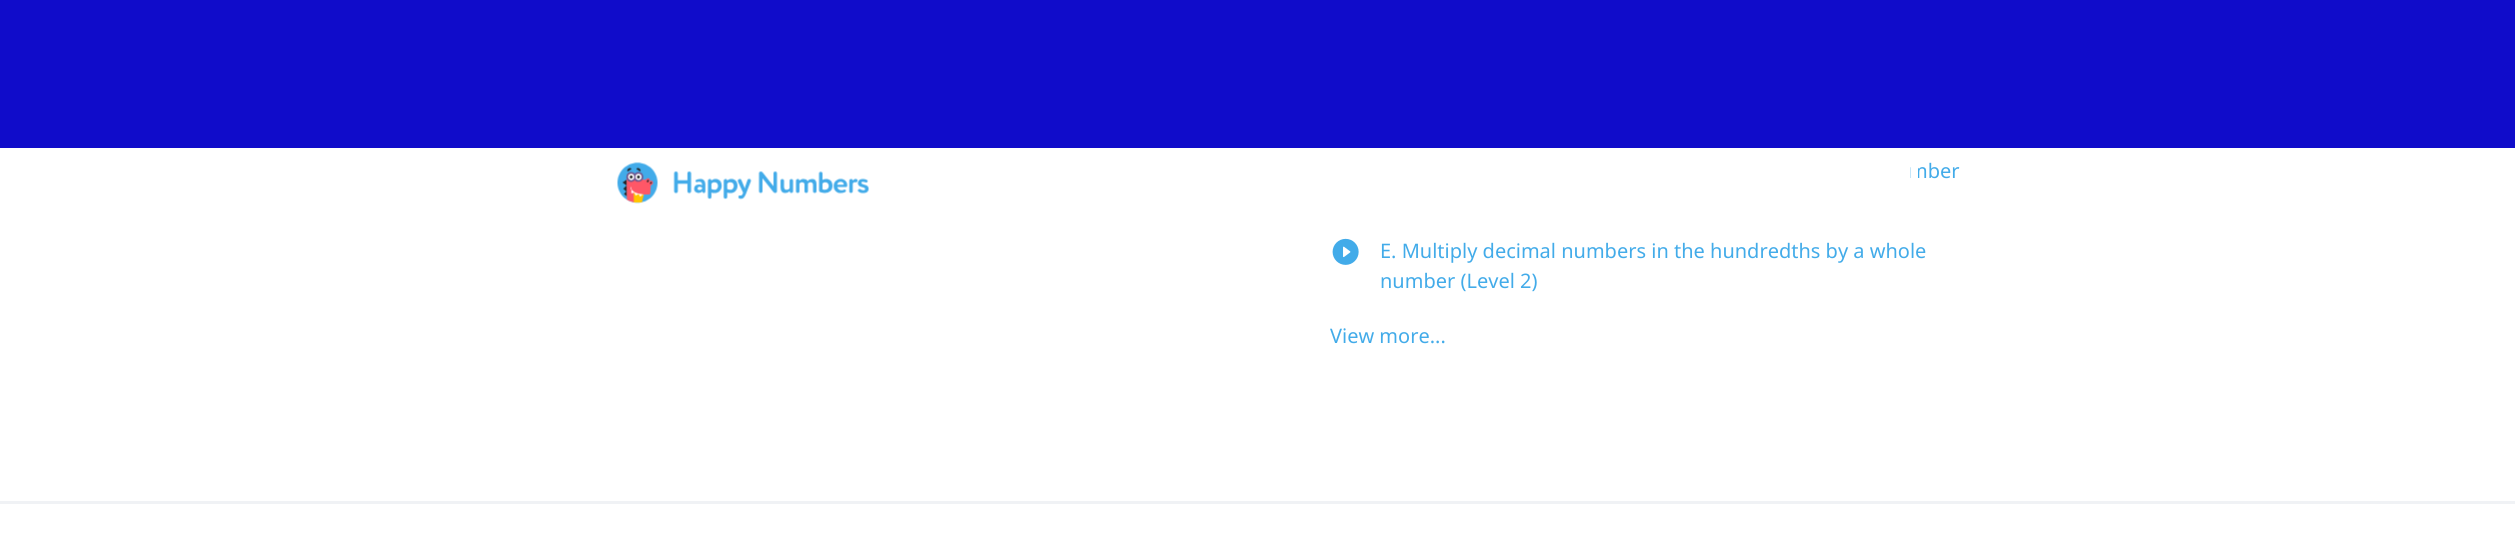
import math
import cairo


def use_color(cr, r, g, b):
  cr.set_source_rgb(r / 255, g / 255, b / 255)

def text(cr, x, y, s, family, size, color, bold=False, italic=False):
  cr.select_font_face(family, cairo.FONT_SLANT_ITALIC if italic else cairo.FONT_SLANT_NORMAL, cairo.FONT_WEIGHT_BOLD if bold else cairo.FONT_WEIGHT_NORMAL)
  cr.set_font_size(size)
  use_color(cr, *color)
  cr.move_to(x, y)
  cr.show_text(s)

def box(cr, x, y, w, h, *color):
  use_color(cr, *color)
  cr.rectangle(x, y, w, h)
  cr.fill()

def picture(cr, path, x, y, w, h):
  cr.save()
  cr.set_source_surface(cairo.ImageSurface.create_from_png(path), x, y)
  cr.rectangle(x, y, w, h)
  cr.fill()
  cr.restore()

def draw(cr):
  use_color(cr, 255, 255, 255)
  cr.paint()
  box(cr, 0, 0, 2515, 148, 16, 12, 202)
  picture(cr, "img_01.png", 617, 162, 253, 42)
  picture(cr, "img_02.png", 1332, 238, 27, 27)
  box(cr, 0, 501, 2515, 3, 240, 242, 245)
  text(cr, 1909, 178, "mber", "Noto Sans", 20, (66, 171, 233))
  box(cr, 1911, 167, 7, 11, 255, 255, 255)
  text(cr, 1380, 258, "E. Multiply decimal numbers in the hundredths by a whole", "Noto Sans", 20, (66, 171, 233))
  text(cr, 1380, 288, "number (Level 2)", "Noto Sans", 20, (66, 171, 233))
  text(cr, 1330, 343, "View more...", "Noto Sans", 20, (66, 171, 233))


surface = cairo.ImageSurface(cairo.FORMAT_RGB24, 2515, 560)
cr = cairo.Context(surface)
options = cairo.FontOptions()
options.set_hint_metrics(cairo.HINT_METRICS_OFF)
options.set_hint_style(cairo.HINT_STYLE_NONE)
cr.set_font_options(options)
cr.set_miter_limit(4)
draw(cr)
surface.write_to_png("out.png")
